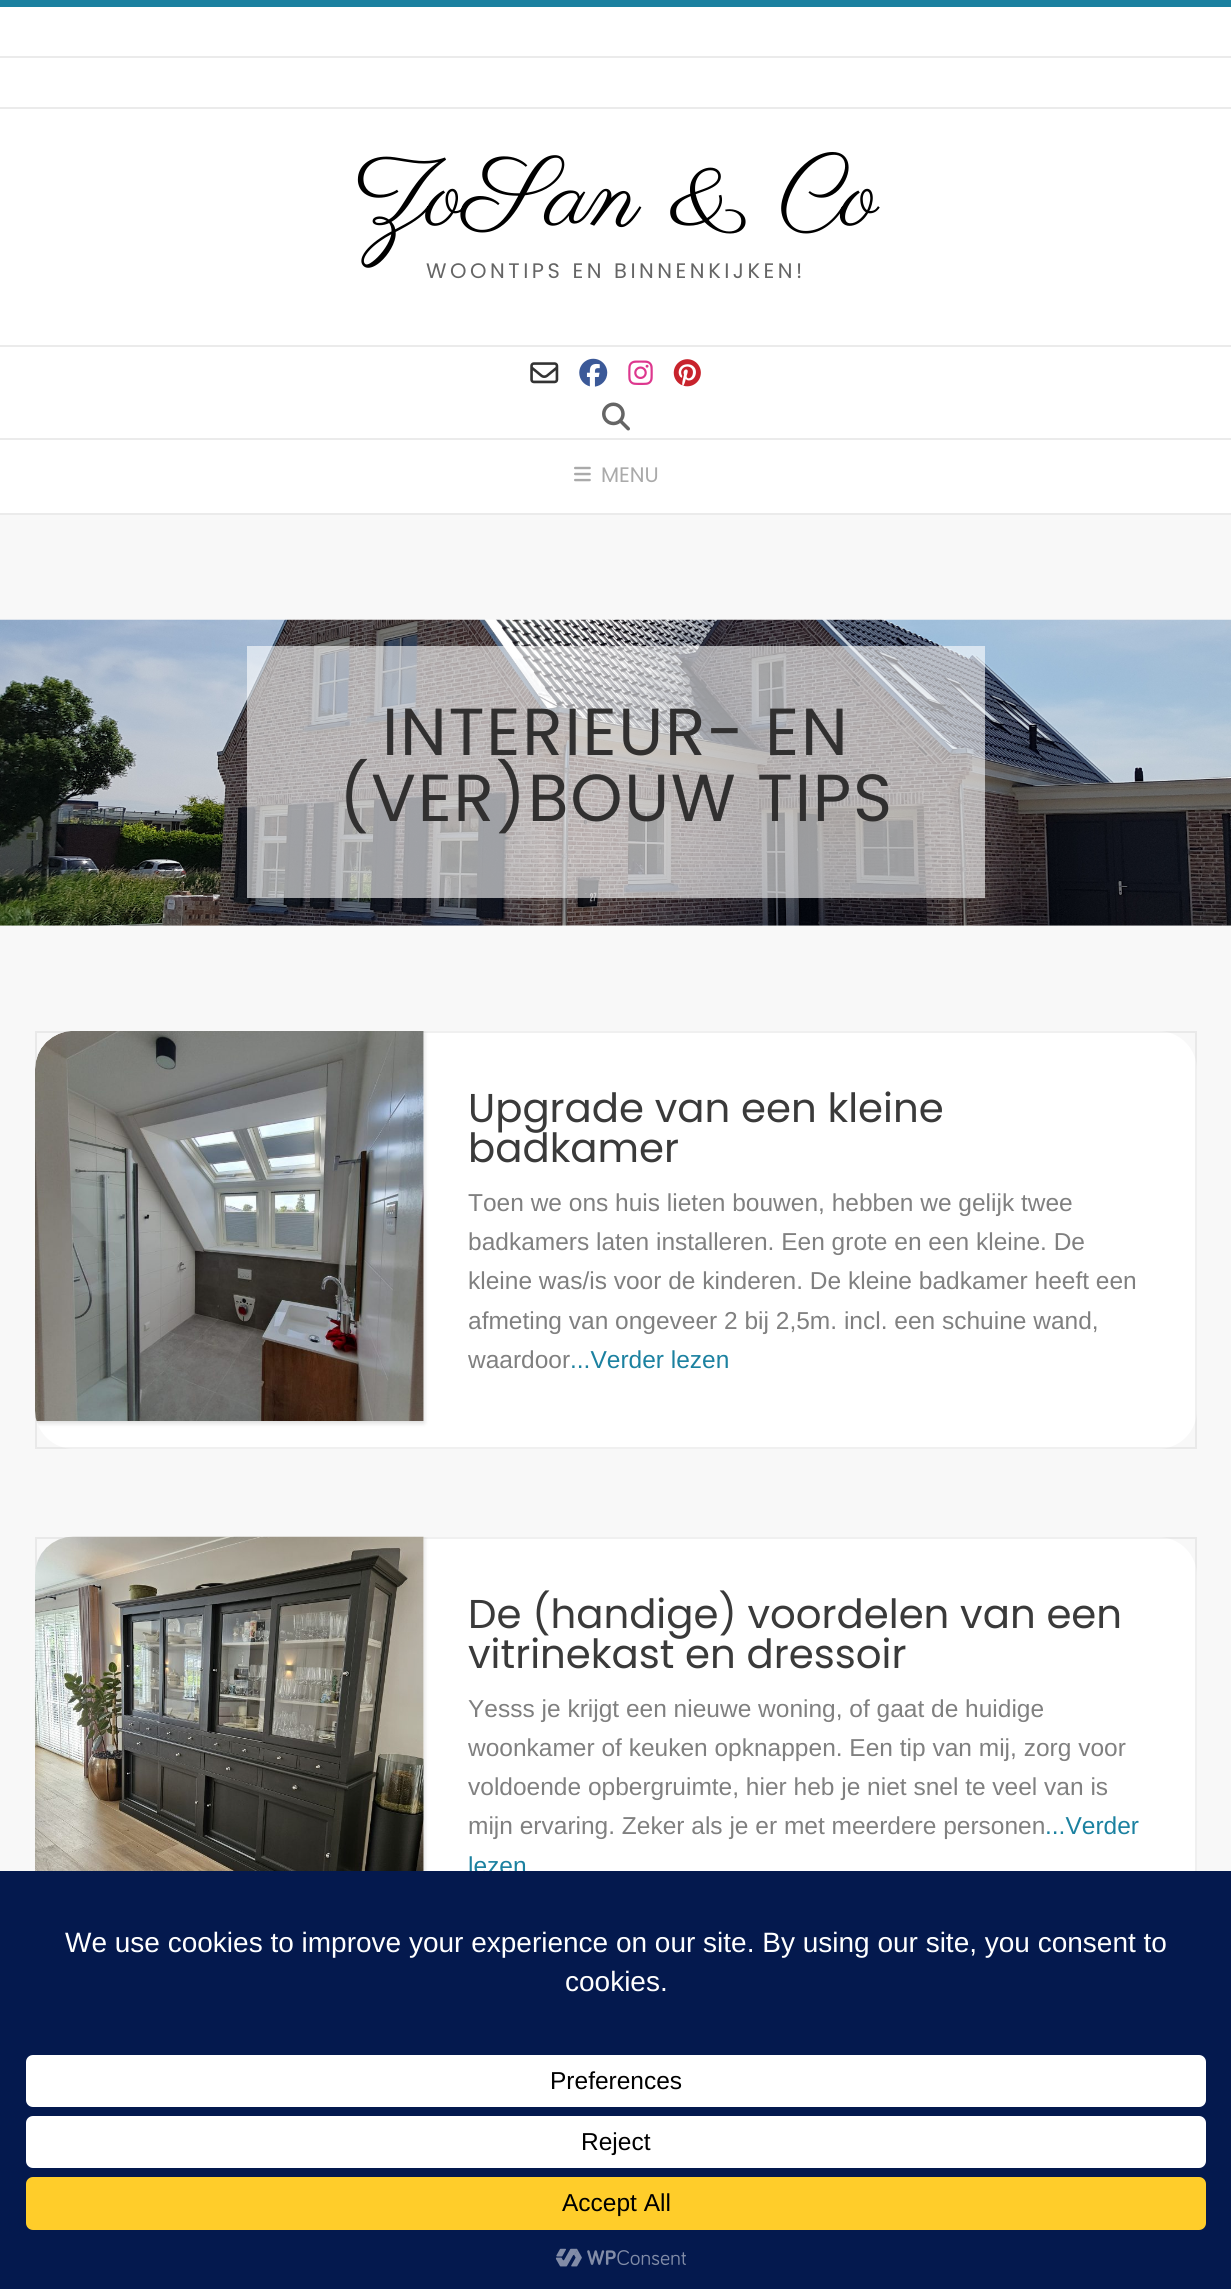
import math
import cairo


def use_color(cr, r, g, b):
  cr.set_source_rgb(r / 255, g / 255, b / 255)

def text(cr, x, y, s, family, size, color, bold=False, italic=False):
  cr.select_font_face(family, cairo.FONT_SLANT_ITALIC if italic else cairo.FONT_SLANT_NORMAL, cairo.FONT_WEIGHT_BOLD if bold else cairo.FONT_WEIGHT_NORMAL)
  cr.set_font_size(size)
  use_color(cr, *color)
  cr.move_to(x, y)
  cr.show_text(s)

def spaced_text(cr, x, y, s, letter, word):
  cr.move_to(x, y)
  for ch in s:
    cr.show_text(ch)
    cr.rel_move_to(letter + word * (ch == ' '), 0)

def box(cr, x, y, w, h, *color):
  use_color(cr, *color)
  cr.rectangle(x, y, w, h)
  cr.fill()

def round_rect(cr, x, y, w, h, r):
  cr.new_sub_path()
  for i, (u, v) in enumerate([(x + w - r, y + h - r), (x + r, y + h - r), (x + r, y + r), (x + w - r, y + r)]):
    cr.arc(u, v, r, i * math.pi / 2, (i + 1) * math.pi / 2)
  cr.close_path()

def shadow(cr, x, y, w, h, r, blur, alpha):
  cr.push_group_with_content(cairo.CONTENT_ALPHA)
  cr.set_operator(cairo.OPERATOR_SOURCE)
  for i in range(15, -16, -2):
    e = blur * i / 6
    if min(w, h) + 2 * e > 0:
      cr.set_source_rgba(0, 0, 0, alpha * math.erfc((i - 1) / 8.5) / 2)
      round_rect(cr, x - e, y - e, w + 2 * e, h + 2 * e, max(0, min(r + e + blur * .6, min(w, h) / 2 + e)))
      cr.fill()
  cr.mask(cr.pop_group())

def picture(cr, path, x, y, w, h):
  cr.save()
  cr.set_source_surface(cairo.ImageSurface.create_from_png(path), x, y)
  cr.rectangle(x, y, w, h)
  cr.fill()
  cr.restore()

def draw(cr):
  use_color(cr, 248, 248, 248)
  cr.paint()
  box(cr, 0, 0, 1231, 7, 27, 129, 160)
  box(cr, 0, 7, 1231, 49, 255, 255, 255)
  box(cr, 0, 56, 1231, 2, 235, 235, 235)
  box(cr, 0, 58, 1231, 49, 255, 255, 255)
  box(cr, 0, 107, 1231, 2, 235, 235, 235)
  box(cr, 0, 109, 1231, 329, 255, 255, 255)
  box(cr, 0, 345, 1231, 2, 235, 235, 235)
  picture(cr, "img_01.png", 530, 362, 29, 22)
  picture(cr, "img_02.png", 579, 358, 29, 29)
  picture(cr, "img_03.png", 628, 360, 25, 25)
  picture(cr, "img_04.png", 673, 359, 28, 28)
  picture(cr, "img_05.png", 602, 402, 28, 29)
  box(cr, 0, 440, 1231, 73, 255, 255, 255)
  box(cr, 0, 438, 1231, 2, 235, 235, 235)
  box(cr, 0, 513, 1231, 2, 235, 235, 235)
  picture(cr, "img_06.png", 574, 466, 17, 16)
  picture(cr, "img_07.png", 0, 619, 1231, 307)
  cr.set_source_rgba(1, 1, 1, 0.6)
  cr.rectangle(247, 646, 738, 252)
  cr.fill()
  use_color(cr, 255, 255, 255)
  round_rect(cr, 35, 1031, 1162, 418, 39)
  cr.fill()
  cr.rectangle(36, 1032, 1160, 416)
  cr.set_source_rgba(0, 0, 0, 0.06)
  cr.stroke()
  picture(cr, "img_08.png", 35, 1031, 389, 390)
  cr.save()
  round_rect(cr, 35, 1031, 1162, 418, 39)
  cr.clip()
  cr.set_fill_rule(cairo.FILL_RULE_EVEN_ODD)
  cr.new_path()
  cr.move_to(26, 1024)
  cr.line_to(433, 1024)
  cr.line_to(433, 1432)
  cr.line_to(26, 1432)
  cr.close_path()
  cr.move_to(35, 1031)
  cr.line_to(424, 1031)
  cr.line_to(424, 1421)
  cr.line_to(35, 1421)
  cr.close_path()
  cr.clip()
  use_color(cr, 0, 0, 0)
  shadow(cr, 35, 1033, 389, 390, 0, 2.5, 0.15)
  cr.restore()
  use_color(cr, 255, 255, 255)
  round_rect(cr, 35, 1537, 1162, 418, 39)
  cr.fill()
  cr.rectangle(36, 1538, 1160, 416)
  cr.set_source_rgba(0, 0, 0, 0.06)
  cr.stroke()
  picture(cr, "img_09.png", 35, 1536, 389, 335)
  cr.save()
  round_rect(cr, 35, 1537, 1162, 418, 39)
  cr.clip()
  cr.set_fill_rule(cairo.FILL_RULE_EVEN_ODD)
  cr.new_path()
  cr.move_to(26, 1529)
  cr.line_to(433, 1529)
  cr.line_to(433, 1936)
  cr.line_to(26, 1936)
  cr.close_path()
  cr.move_to(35, 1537)
  cr.line_to(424, 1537)
  cr.line_to(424, 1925)
  cr.line_to(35, 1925)
  cr.close_path()
  cr.clip()
  use_color(cr, 0, 0, 0)
  shadow(cr, 35, 1538, 389, 389, 0, 2.5, 0.15)
  cr.restore()
  text(cr, 355, 224, "ZoSan & Co", "Parisienne", 98, (0, 0, 0))
  cr.select_font_face("Poppins")
  cr.set_font_size(21)
  use_color(cr, 101, 101, 101)
  spaced_text(cr, 426, 278, "WOONTIPS EN BINNENKIJKEN!", 3.5, 0)
  text(cr, 601, 482, "MENU", "Poppins", 21, (170, 170, 170))
  cr.set_font_size(66.5)
  use_color(cr, 49, 48, 48)
  spaced_text(cr, 382, 755, "INTERIEUR- EN", 1.75, 0)
  spaced_text(cr, 339, 821, "(VER)BOUW TIPS", 1.75, 0)
  text(cr, 468, 1122, "Upgrade van een kleine", "Poppins", 40.25, (58, 58, 58))
  text(cr, 468, 1162, "badkamer", "Poppins", 40.25, (58, 58, 58))
  text(cr, 468, 1211, "Toen we ons huis lieten bouwen, hebben we gelijk twee", "Liberation Sans", 24.5, (128, 128, 128))
  text(cr, 468, 1250, "badkamers laten installeren. Een grote en een kleine. De", "Liberation Sans", 24.5, (128, 128, 128))
  text(cr, 468, 1289, "kleine was/is voor de kinderen. De kleine badkamer heeft een", "Liberation Sans", 24.5, (128, 128, 128))
  text(cr, 468, 1329, "afmeting van ongeveer 2 bij 2,5m. incl. een schuine wand,", "Liberation Sans", 24.5, (128, 128, 128))
  text(cr, 468, 1368, "waardoor", "Liberation Sans", 24.5, (128, 128, 128))
  text(cr, 570, 1368, "...Verder lezen", "Liberation Sans", 24.5, (27, 129, 160))
  text(cr, 468, 1628, "De (handige) voordelen van een", "Poppins", 40.25, (58, 58, 58))
  text(cr, 468, 1668, "vitrinekast en dressoir", "Poppins", 40.25, (58, 58, 58))
  text(cr, 468, 1717, "Yesss je krijgt een nieuwe woning, of gaat de huidige", "Liberation Sans", 24.5, (128, 128, 128))
  text(cr, 468, 1756, "woonkamer of keuken opknappen. Een tip van mij, zorg voor", "Liberation Sans", 24.5, (128, 128, 128))
  text(cr, 468, 1795, "voldoende opbergruimte, hier heb je niet snel te veel van is", "Liberation Sans", 24.5, (128, 128, 128))
  text(cr, 468, 1834, "mijn ervaring. Zeker als je er met meerdere personen", "Liberation Sans", 24.5, (128, 128, 128))
  text(cr, 1045, 1834, "...Verder", "Liberation Sans", 24.5, (27, 129, 160))
  text(cr, 468, 1874, "lezen", "Liberation Sans", 24.5, (27, 129, 160))
  box(cr, 0, 1871, 1231, 418, 4, 25, 78)
  text(cr, 65, 1952, "We use cookies to improve your experience on our site. By using our site, you consent to", "Liberation Sans", 28, (255, 255, 255))
  text(cr, 565, 1991, "cookies.", "Liberation Sans", 28, (255, 255, 255))
  round_rect(cr, 26, 2055, 1180, 52, 7)
  cr.fill()
  text(cr, 550, 2089, "Preferences", "Liberation Sans", 24.5, (0, 0, 0))
  use_color(cr, 255, 255, 255)
  round_rect(cr, 26, 2116, 1180, 52, 7)
  cr.fill()
  text(cr, 581, 2150, "Reject", "Liberation Sans", 24.5, (0, 0, 0))
  use_color(cr, 255, 205, 42)
  round_rect(cr, 26, 2177, 1180, 53, 7)
  cr.fill()
  text(cr, 562, 2211, "Accept All", "Liberation Sans", 24.5, (0, 0, 0))
  picture(cr, "img_10.png", 555, 2248, 131, 19)


surface = cairo.ImageSurface(cairo.FORMAT_RGB24, 1231, 2289)
cr = cairo.Context(surface)
options = cairo.FontOptions()
options.set_hint_metrics(cairo.HINT_METRICS_OFF)
options.set_hint_style(cairo.HINT_STYLE_NONE)
cr.set_font_options(options)
cr.set_miter_limit(4)
draw(cr)
surface.write_to_png("out.png")
